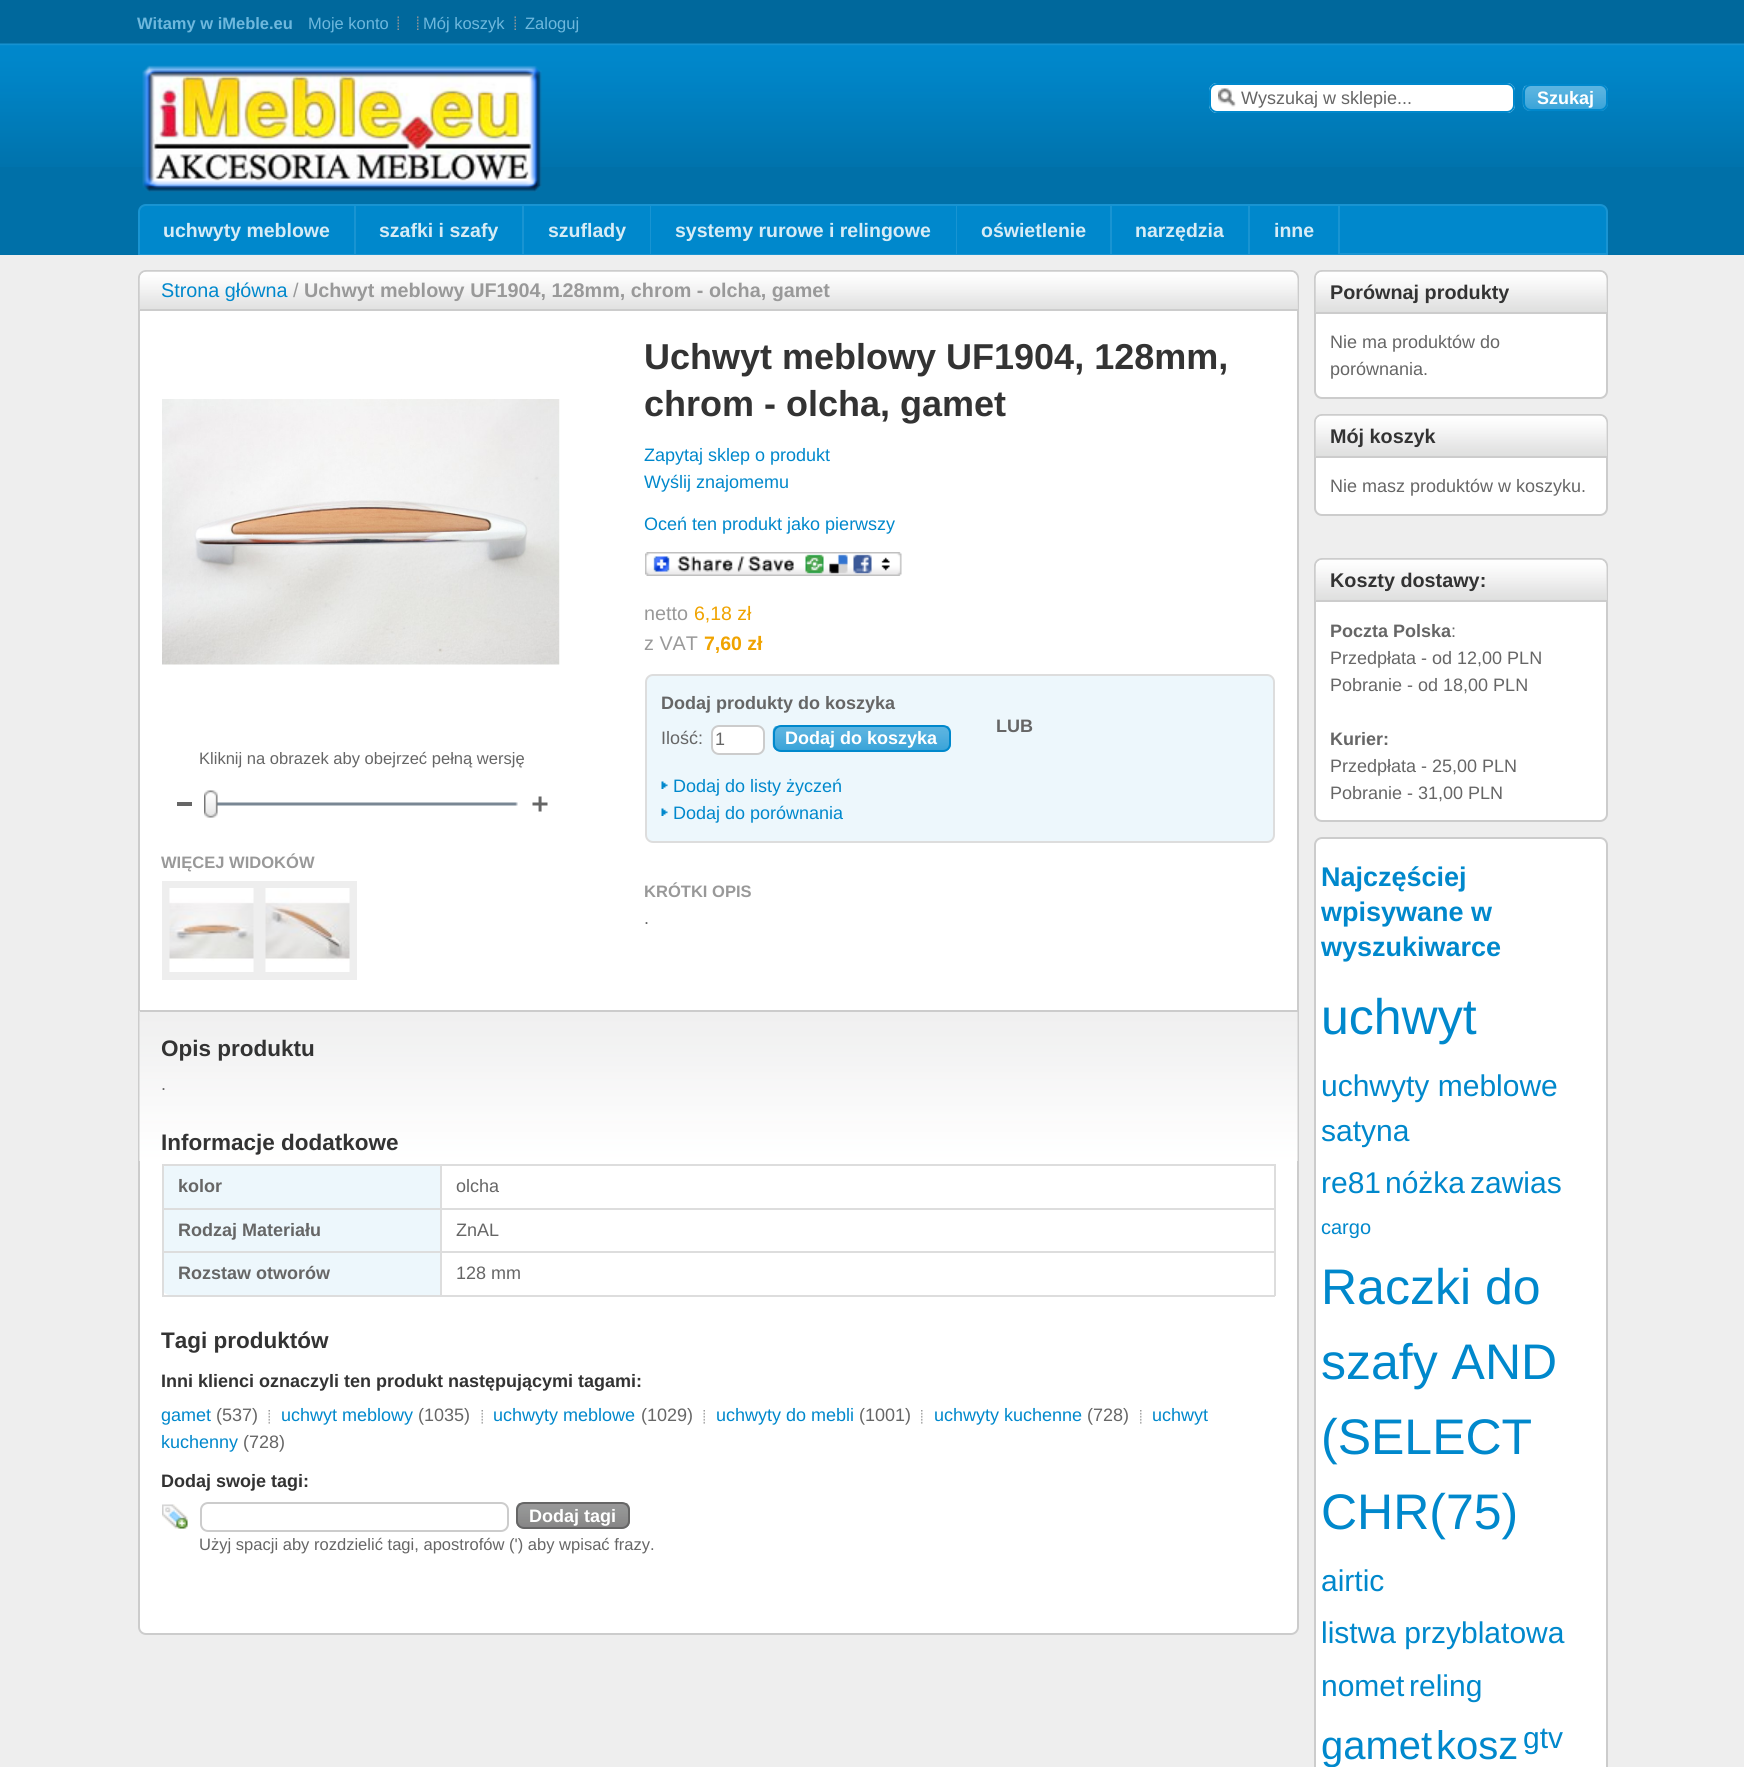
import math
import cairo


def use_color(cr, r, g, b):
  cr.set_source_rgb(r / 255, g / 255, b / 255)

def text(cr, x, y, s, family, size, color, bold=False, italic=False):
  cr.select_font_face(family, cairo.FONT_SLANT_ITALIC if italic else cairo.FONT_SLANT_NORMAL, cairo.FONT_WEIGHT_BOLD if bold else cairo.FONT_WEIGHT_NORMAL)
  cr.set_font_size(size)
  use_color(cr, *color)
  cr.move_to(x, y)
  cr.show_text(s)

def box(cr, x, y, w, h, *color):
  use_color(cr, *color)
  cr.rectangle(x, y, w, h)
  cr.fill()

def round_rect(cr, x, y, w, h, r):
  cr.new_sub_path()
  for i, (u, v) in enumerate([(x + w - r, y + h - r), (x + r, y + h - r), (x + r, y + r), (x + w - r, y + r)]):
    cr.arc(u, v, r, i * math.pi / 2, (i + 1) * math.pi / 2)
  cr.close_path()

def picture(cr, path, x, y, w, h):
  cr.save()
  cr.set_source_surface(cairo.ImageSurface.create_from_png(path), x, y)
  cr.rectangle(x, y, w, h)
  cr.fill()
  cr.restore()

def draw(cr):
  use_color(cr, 0, 112, 168)
  cr.paint()
  picture(cr, "img_01.png", 0, 0, 1744, 167)
  picture(cr, "img_02.png", 397, 16, 2, 14)
  picture(cr, "img_03.png", 417, 16, 2, 14)
  picture(cr, "img_02.png", 514, 16, 2, 14)
  picture(cr, "img_04.png", 142, 65, 400, 127)
  use_color(cr, 255, 255, 255)
  round_rect(cr, 1209, 83, 306, 30, 8)
  cr.fill()
  picture(cr, "img_05.png", 1218, 88, 18, 19)
  round_rect(cr, 1210, 84, 304, 28, 7)
  use_color(cr, 0, 136, 204)
  cr.stroke()
  picture(cr, "img_06.png", 1522, 85, 86, 26)
  round_rect(cr, 1524, 85, 83, 25, 7)
  cr.stroke()
  cr.new_path()
  cr.move_to(146, 205)
  cr.line_to(1600, 205)
  cr.curve_to(1604, 205, 1607, 208, 1607, 212)
  cr.line_to(1607, 254)
  cr.line_to(139, 254)
  cr.line_to(139, 212)
  cr.curve_to(139, 208, 142, 205, 146, 205)
  cr.close_path()
  cr.fill_preserve()
  use_color(cr, 25, 148, 210)
  cr.stroke()
  box(cr, 354, 206, 2, 48, 25, 148, 210)
  cr.new_path()
  cr.move_to(148, 207)
  cr.line_to(353, 207)
  cr.line_to(353, 253)
  cr.line_to(141, 253)
  cr.line_to(141, 214)
  cr.curve_to(141, 210, 144, 207, 148, 207)
  cr.close_path()
  use_color(cr, 0, 136, 204)
  cr.stroke()
  box(cr, 522, 206, 2, 48, 25, 148, 210)
  cr.rectangle(357, 207, 164, 46)
  use_color(cr, 0, 136, 204)
  cr.stroke()
  box(cr, 650, 206, 1, 48, 25, 148, 210)
  cr.rectangle(525, 207, 124, 46)
  use_color(cr, 0, 136, 204)
  cr.stroke()
  box(cr, 956, 206, 1, 48, 25, 148, 210)
  cr.rectangle(652, 207, 303, 46)
  use_color(cr, 0, 136, 204)
  cr.stroke()
  box(cr, 1110, 206, 2, 48, 25, 148, 210)
  cr.rectangle(958, 207, 151, 46)
  use_color(cr, 0, 136, 204)
  cr.stroke()
  box(cr, 1248, 206, 2, 48, 25, 148, 210)
  cr.rectangle(1113, 207, 134, 46)
  use_color(cr, 0, 136, 204)
  cr.stroke()
  box(cr, 1338, 206, 2, 48, 25, 148, 210)
  cr.rectangle(1251, 207, 86, 46)
  use_color(cr, 0, 136, 204)
  cr.stroke()
  box(cr, 0, 255, 1744, 1512, 238, 238, 238)
  use_color(cr, 255, 255, 255)
  round_rect(cr, 139, 271, 1159, 1363, 7)
  cr.fill_preserve()
  use_color(cr, 204, 204, 204)
  cr.stroke()
  use_color(cr, 221, 221, 221)
  cr.new_path()
  cr.move_to(148, 272)
  cr.line_to(1290, 272)
  cr.curve_to(1294.5, 272, 1298, 275.5, 1298, 280)
  cr.line_to(1298, 311)
  cr.line_to(140, 311)
  cr.line_to(140, 280)
  cr.curve_to(140, 275.5, 143.5, 272, 148, 272)
  cr.close_path()
  cr.fill()
  picture(cr, "img_07.png", 139, 271, 1159, 39)
  box(cr, 140, 309, 1158, 2, 204, 204, 204)
  picture(cr, "img_08.png", 162, 399, 398, 266)
  picture(cr, "img_09.png", 217, 802, 301, 4)
  box(cr, 177, 802, 15, 4, 102, 102, 102)
  picture(cr, "img_10.png", 204, 790, 14, 28)
  picture(cr, "img_11.png", 532, 796, 16, 16)
  box(cr, 162, 881, 195, 99, 238, 238, 238)
  picture(cr, "img_12.png", 169, 888, 85, 84)
  picture(cr, "img_13.png", 265, 888, 85, 84)
  picture(cr, "img_14.png", 645, 552, 257, 24)
  use_color(cr, 237, 247, 252)
  round_rect(cr, 646, 675, 628, 167, 7)
  cr.fill_preserve()
  use_color(cr, 221, 221, 221)
  cr.stroke()
  use_color(cr, 255, 255, 255)
  round_rect(cr, 712, 726, 52, 28, 7)
  cr.fill_preserve()
  use_color(cr, 204, 204, 204)
  cr.stroke()
  picture(cr, "img_15.png", 772, 726, 179, 26)
  round_rect(cr, 774, 726, 176, 25, 7)
  use_color(cr, 0, 136, 204)
  cr.stroke()
  picture(cr, "img_16.png", 661, 781, 7, 8)
  picture(cr, "img_16.png", 661, 808, 7, 8)
  picture(cr, "img_17.png", 139, 1011, 1159, 150)
  box(cr, 140, 1010, 1158, 2, 204, 204, 204)
  use_color(cr, 237, 247, 252)
  cr.new_path()
  cr.move_to(170, 1164)
  cr.line_to(440, 1164)
  cr.line_to(440, 1208)
  cr.line_to(162, 1208)
  cr.line_to(162, 1172)
  cr.curve_to(162, 1167.5, 165.5, 1164, 170, 1164)
  cr.close_path()
  cr.fill()
  box(cr, 162, 1164, 1113, 2, 221, 221, 221)
  box(cr, 1274, 1164, 2, 132, 221, 221, 221)
  box(cr, 162, 1295, 1113, 2, 221, 221, 221)
  use_color(cr, 237, 247, 252)
  cr.new_path()
  cr.move_to(162, 1251)
  cr.line_to(440, 1251)
  cr.line_to(440, 1295)
  cr.line_to(170, 1295)
  cr.curve_to(165.5, 1295, 162, 1291.5, 162, 1287)
  cr.close_path()
  cr.fill()
  box(cr, 162, 1164, 2, 132, 221, 221, 221)
  box(cr, 440, 1251, 2, 45, 221, 221, 221)
  box(cr, 440, 1251, 835, 2, 221, 221, 221)
  box(cr, 440, 1208, 2, 45, 221, 221, 221)
  box(cr, 440, 1208, 835, 2, 221, 221, 221)
  box(cr, 440, 1164, 2, 45, 221, 221, 221)
  box(cr, 162, 1208, 279, 2, 221, 221, 221)
  box(cr, 164, 1210, 276, 41, 237, 247, 252)
  box(cr, 162, 1251, 279, 2, 221, 221, 221)
  picture(cr, "img_18.png", 268, 1410, 2, 14)
  picture(cr, "img_18.png", 481, 1410, 2, 14)
  picture(cr, "img_18.png", 703, 1410, 2, 14)
  picture(cr, "img_19.png", 921, 1410, 2, 14)
  picture(cr, "img_19.png", 1140, 1410, 2, 14)
  picture(cr, "img_20.png", 162, 1504, 26, 25)
  round_rect(cr, 201, 1503, 307, 28, 7)
  use_color(cr, 204, 204, 204)
  cr.stroke()
  picture(cr, "img_21.png", 516, 1503, 114, 26)
  round_rect(cr, 517, 1503, 112, 25, 7)
  use_color(cr, 102, 102, 102)
  cr.stroke()
  use_color(cr, 255, 255, 255)
  round_rect(cr, 1315, 271, 292, 127, 7)
  cr.fill_preserve()
  use_color(cr, 204, 204, 204)
  cr.stroke()
  use_color(cr, 221, 221, 221)
  cr.new_path()
  cr.move_to(1324, 272)
  cr.line_to(1599, 272)
  cr.curve_to(1603.5, 272, 1607, 275.5, 1607, 280)
  cr.line_to(1607, 314)
  cr.line_to(1316, 314)
  cr.line_to(1316, 280)
  cr.curve_to(1316, 275.5, 1319.5, 272, 1324, 272)
  cr.close_path()
  cr.fill()
  picture(cr, "img_22.png", 1315, 271, 292, 42)
  box(cr, 1316, 312, 291, 2, 204, 204, 204)
  use_color(cr, 255, 255, 255)
  round_rect(cr, 1315, 415, 292, 100, 7)
  cr.fill_preserve()
  use_color(cr, 204, 204, 204)
  cr.stroke()
  use_color(cr, 221, 221, 221)
  cr.new_path()
  cr.move_to(1324, 416)
  cr.line_to(1599, 416)
  cr.curve_to(1603.5, 416, 1607, 419.5, 1607, 424)
  cr.line_to(1607, 458)
  cr.line_to(1316, 458)
  cr.line_to(1316, 424)
  cr.curve_to(1316, 419.5, 1319.5, 416, 1324, 416)
  cr.close_path()
  cr.fill()
  picture(cr, "img_22.png", 1315, 415, 292, 42)
  box(cr, 1316, 456, 291, 2, 204, 204, 204)
  use_color(cr, 255, 255, 255)
  round_rect(cr, 1315, 559, 292, 262, 7)
  cr.fill_preserve()
  use_color(cr, 204, 204, 204)
  cr.stroke()
  use_color(cr, 221, 221, 221)
  cr.new_path()
  cr.move_to(1324, 560)
  cr.line_to(1599, 560)
  cr.curve_to(1603.5, 560, 1607, 563.5, 1607, 568)
  cr.line_to(1607, 602)
  cr.line_to(1316, 602)
  cr.line_to(1316, 568)
  cr.curve_to(1316, 563.5, 1319.5, 560, 1324, 560)
  cr.close_path()
  cr.fill()
  picture(cr, "img_22.png", 1315, 559, 292, 42)
  box(cr, 1316, 600, 291, 2, 204, 204, 204)
  use_color(cr, 255, 255, 255)
  round_rect(cr, 1315, 838, 292, 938, 7)
  cr.fill_preserve()
  use_color(cr, 204, 204, 204)
  cr.stroke()
  text(cr, 137, 29, "Witamy w iMeble.eu", "Liberation Sans", 16.5, (110, 184, 221), bold=True)
  text(cr, 308, 29, "Moje konto", "Liberation Sans", 16.5, (110, 184, 221))
  text(cr, 423, 29, "Mój koszyk", "Liberation Sans", 16.5, (110, 184, 221))
  text(cr, 525, 29, "Zaloguj", "Liberation Sans", 16.5, (110, 184, 221))
  text(cr, 1241, 104, "Wyszukaj w sklepie...", "Liberation Sans", 18, (102, 102, 102))
  text(cr, 1537, 104, "Szukaj", "Liberation Sans", 18, (255, 255, 255), bold=True)
  text(cr, 163, 237, "uchwyty meblowe", "Liberation Sans", 19.5, (215, 236, 246), bold=True)
  text(cr, 379, 237, "szafki i szafy", "Liberation Sans", 19.5, (215, 236, 246), bold=True)
  text(cr, 548, 237, "szuflady", "Liberation Sans", 19.5, (215, 236, 246), bold=True)
  text(cr, 675, 237, "systemy rurowe i relingowe", "Liberation Sans", 19.5, (215, 236, 246), bold=True)
  text(cr, 981, 237, "oświetlenie", "Liberation Sans", 19.5, (215, 236, 246), bold=True)
  text(cr, 1135, 237, "narzędzia", "Liberation Sans", 19.5, (215, 236, 246), bold=True)
  text(cr, 1274, 237, "inne", "Liberation Sans", 19.5, (215, 236, 246), bold=True)
  text(cr, 161, 297, "Strona główna", "Liberation Sans", 19.8, (0, 136, 204))
  text(cr, 293, 297, "/", "Liberation Sans", 19.8, (153, 153, 153))
  text(cr, 304, 297, "Uchwyt meblowy UF1904, 128mm, chrom - olcha, gamet", "Liberation Sans", 19.8, (153, 153, 153), bold=True)
  text(cr, 199, 764, "Kliknij na obrazek aby obejrzeć pełną wersję", "Liberation Sans", 16.55, (102, 102, 102))
  text(cr, 161, 868, "WIĘCEJ WIDOKÓW", "Liberation Sans", 16.55, (153, 153, 153), bold=True)
  text(cr, 644, 369, "Uchwyt meblowy UF1904, 128mm,", "Liberation Sans", 36, (51, 51, 51), bold=True)
  text(cr, 644, 416, "chrom - olcha, gamet", "Liberation Sans", 36, (51, 51, 51), bold=True)
  text(cr, 644, 461, "Zapytaj sklep o produkt", "Liberation Sans", 18, (0, 136, 204))
  text(cr, 644, 488, "Wyślij znajomemu", "Liberation Sans", 18, (0, 136, 204))
  text(cr, 644, 530, "Oceń ten produkt jako pierwszy", "Liberation Sans", 18, (0, 136, 204))
  text(cr, 644, 620, "netto", "Liberation Sans", 19.8, (153, 153, 153))
  text(cr, 694, 620, "6,18 zł", "Liberation Sans", 19.5, (240, 163, 0))
  text(cr, 644, 650, "z VAT", "Liberation Sans", 19.8, (153, 153, 153))
  text(cr, 704, 650, "7,60 zł", "Liberation Sans", 19.5, (240, 163, 0), bold=True)
  text(cr, 661, 709, "Dodaj produkty do koszyka", "Liberation Sans", 18, (102, 102, 102), bold=True)
  text(cr, 661, 744, "Ilość:", "Liberation Sans", 18, (102, 102, 102))
  text(cr, 715, 745, "1", "Liberation Sans", 18, (102, 102, 102))
  text(cr, 785, 744, "Dodaj do koszyka", "Liberation Sans", 18, (255, 255, 255), bold=True)
  text(cr, 996, 732, "LUB", "Liberation Sans", 18, (102, 102, 102), bold=True)
  text(cr, 673, 792, "Dodaj do listy życzeń", "Liberation Sans", 18, (0, 136, 204))
  text(cr, 673, 819, "Dodaj do porównania", "Liberation Sans", 18, (0, 136, 204))
  text(cr, 644, 897, "KRÓTKI OPIS", "Liberation Sans", 16.55, (153, 153, 153), bold=True)
  text(cr, 644, 924, ".", "Liberation Sans", 18, (102, 102, 102))
  text(cr, 161, 1056, "Opis produktu", "Liberation Sans", 22.5, (51, 51, 51), bold=True)
  text(cr, 161, 1090, ".", "Liberation Sans", 18, (102, 102, 102))
  text(cr, 161, 1150, "Informacje dodatkowe", "Liberation Sans", 22.5, (51, 51, 51), bold=True)
  text(cr, 178, 1192, "kolor", "Liberation Sans", 18, (102, 102, 102), bold=True)
  text(cr, 456, 1192, "olcha", "Liberation Sans", 18, (102, 102, 102))
  text(cr, 178, 1236, "Rodzaj Materiału", "Liberation Sans", 18, (102, 102, 102), bold=True)
  text(cr, 456, 1236, "ZnAL", "Liberation Sans", 18, (102, 102, 102))
  text(cr, 178, 1279, "Rozstaw otworów", "Liberation Sans", 18, (102, 102, 102), bold=True)
  text(cr, 456, 1279, "128 mm", "Liberation Sans", 18, (102, 102, 102))
  text(cr, 161, 1348, "Tagi produktów", "Liberation Sans", 22.5, (51, 51, 51), bold=True)
  text(cr, 161, 1387, "Inni klienci oznaczyli ten produkt następującymi tagami:", "Liberation Sans", 18, (51, 51, 51), bold=True)
  text(cr, 161, 1421, "gamet", "Liberation Sans", 18, (0, 136, 204))
  text(cr, 216, 1421, "(537)", "Liberation Sans", 18, (102, 102, 102))
  text(cr, 281, 1421, "uchwyt meblowy", "Liberation Sans", 18, (0, 136, 204))
  text(cr, 418, 1421, "(1035)", "Liberation Sans", 18, (102, 102, 102))
  text(cr, 493, 1421, "uchwyty meblowe", "Liberation Sans", 18, (0, 136, 204))
  text(cr, 641, 1421, "(1029)", "Liberation Sans", 18, (102, 102, 102))
  text(cr, 716, 1421, "uchwyty do mebli", "Liberation Sans", 18, (0, 136, 204))
  text(cr, 859, 1421, "(1001)", "Liberation Sans", 18, (102, 102, 102))
  text(cr, 934, 1421, "uchwyty kuchenne", "Liberation Sans", 18, (0, 136, 204))
  text(cr, 1087, 1421, "(728)", "Liberation Sans", 18, (102, 102, 102))
  text(cr, 1152, 1421, "uchwyt", "Liberation Sans", 18, (0, 136, 204))
  text(cr, 161, 1448, "kuchenny", "Liberation Sans", 18, (0, 136, 204))
  text(cr, 243, 1448, "(728)", "Liberation Sans", 18, (102, 102, 102))
  text(cr, 161, 1487, "Dodaj swoje tagi:", "Liberation Sans", 18, (51, 51, 51), bold=True)
  text(cr, 529, 1522, "Dodaj tagi", "Liberation Sans", 18, (255, 255, 255), bold=True)
  text(cr, 199, 1550, "Użyj spacji aby rozdzielić tagi, apostrofów (') aby wpisać frazy.", "Liberation Sans", 16.55, (102, 102, 102))
  text(cr, 1330, 299, "Porównaj produkty", "Liberation Sans", 19.8, (51, 51, 51), bold=True)
  text(cr, 1330, 348, "Nie ma produktów do", "Liberation Sans", 18, (102, 102, 102))
  text(cr, 1330, 375, "porównania.", "Liberation Sans", 18, (102, 102, 102))
  text(cr, 1330, 443, "Mój koszyk", "Liberation Sans", 19.8, (51, 51, 51), bold=True)
  text(cr, 1330, 492, "Nie masz produktów w koszyku.", "Liberation Sans", 18, (102, 102, 102))
  text(cr, 1330, 587, "Koszty dostawy:", "Liberation Sans", 19.8, (51, 51, 51), bold=True)
  text(cr, 1330, 637, "Poczta Polska", "Liberation Sans", 18, (102, 102, 102), bold=True)
  text(cr, 1451, 637, ":", "Liberation Sans", 18, (102, 102, 102))
  text(cr, 1330, 664, "Przedpłata - od 12,00 PLN", "Liberation Sans", 18, (102, 102, 102))
  text(cr, 1330, 691, "Pobranie - od 18,00 PLN", "Liberation Sans", 18, (102, 102, 102))
  text(cr, 1330, 745, "Kurier:", "Liberation Sans", 18, (102, 102, 102), bold=True)
  text(cr, 1330, 772, "Przedpłata - 25,00 PLN", "Liberation Sans", 18, (102, 102, 102))
  text(cr, 1330, 799, "Pobranie - 31,00 PLN", "Liberation Sans", 18, (102, 102, 102))
  text(cr, 1321, 886, "Najczęściej", "Liberation Sans", 27, (0, 136, 204), bold=True)
  text(cr, 1321, 921, "wpisywane w", "Liberation Sans", 27, (0, 136, 204), bold=True)
  text(cr, 1321, 956, "wyszukiwarce", "Liberation Sans", 27, (0, 136, 204), bold=True)
  text(cr, 1321, 1034, "uchwyt", "Liberation Sans", 50, (0, 136, 204))
  text(cr, 1321, 1096, "uchwyty meblowe", "Liberation Sans", 30, (0, 136, 204))
  text(cr, 1321, 1141, "satyna", "Liberation Sans", 30, (0, 136, 204))
  text(cr, 1321, 1193, "re81", "Liberation Sans", 30, (0, 136, 204))
  text(cr, 1385, 1193, "nóżka", "Liberation Sans", 30, (0, 136, 204))
  text(cr, 1470, 1193, "zawias", "Liberation Sans", 30, (0, 136, 204))
  text(cr, 1321, 1234, "cargo", "Liberation Sans", 20, (0, 136, 204))
  text(cr, 1321, 1304, "Raczki do", "Liberation Sans", 50, (0, 136, 204))
  text(cr, 1321, 1379, "szafy AND", "Liberation Sans", 50, (0, 136, 204))
  text(cr, 1321, 1454, "(SELECT", "Liberation Sans", 50, (0, 136, 204))
  text(cr, 1321, 1529, "CHR(75)", "Liberation Sans", 50, (0, 136, 204))
  text(cr, 1321, 1591, "airtic", "Liberation Sans", 30, (0, 136, 204))
  text(cr, 1321, 1643, "listwa przyblatowa", "Liberation Sans", 30, (0, 136, 204))
  text(cr, 1321, 1696, "nomet", "Liberation Sans", 30, (0, 136, 204))
  text(cr, 1409, 1696, "reling", "Liberation Sans", 30, (0, 136, 204))
  text(cr, 1321, 1759, "gamet", "Liberation Sans", 40, (0, 136, 204))
  text(cr, 1436, 1759, "kosz", "Liberation Sans", 40, (0, 136, 204))
  text(cr, 1523, 1748, "gtv", "Liberation Sans", 30, (0, 136, 204))


surface = cairo.ImageSurface(cairo.FORMAT_RGB24, 1744, 1767)
cr = cairo.Context(surface)
options = cairo.FontOptions()
options.set_hint_metrics(cairo.HINT_METRICS_OFF)
options.set_hint_style(cairo.HINT_STYLE_NONE)
cr.set_font_options(options)
cr.set_miter_limit(4)
draw(cr)
surface.write_to_png("out.png")
